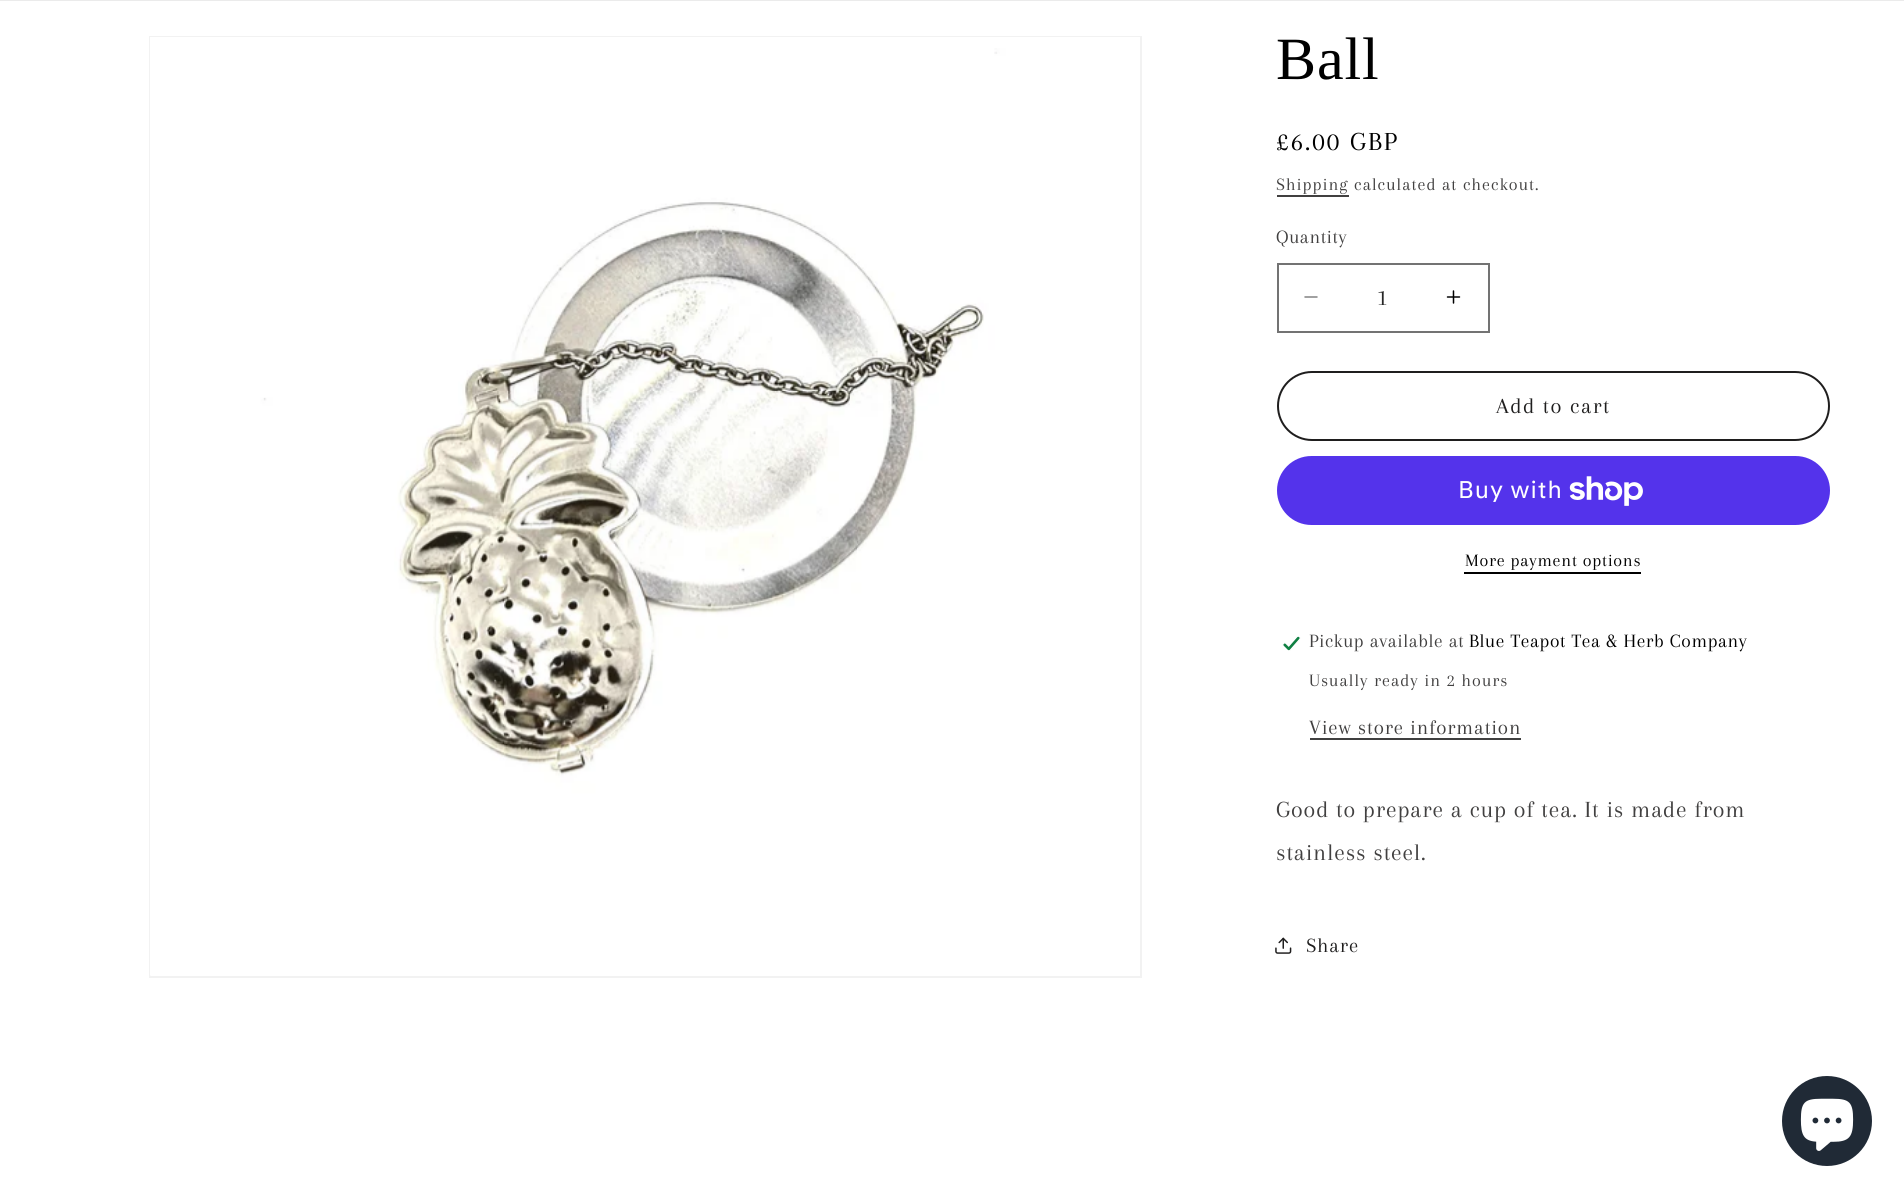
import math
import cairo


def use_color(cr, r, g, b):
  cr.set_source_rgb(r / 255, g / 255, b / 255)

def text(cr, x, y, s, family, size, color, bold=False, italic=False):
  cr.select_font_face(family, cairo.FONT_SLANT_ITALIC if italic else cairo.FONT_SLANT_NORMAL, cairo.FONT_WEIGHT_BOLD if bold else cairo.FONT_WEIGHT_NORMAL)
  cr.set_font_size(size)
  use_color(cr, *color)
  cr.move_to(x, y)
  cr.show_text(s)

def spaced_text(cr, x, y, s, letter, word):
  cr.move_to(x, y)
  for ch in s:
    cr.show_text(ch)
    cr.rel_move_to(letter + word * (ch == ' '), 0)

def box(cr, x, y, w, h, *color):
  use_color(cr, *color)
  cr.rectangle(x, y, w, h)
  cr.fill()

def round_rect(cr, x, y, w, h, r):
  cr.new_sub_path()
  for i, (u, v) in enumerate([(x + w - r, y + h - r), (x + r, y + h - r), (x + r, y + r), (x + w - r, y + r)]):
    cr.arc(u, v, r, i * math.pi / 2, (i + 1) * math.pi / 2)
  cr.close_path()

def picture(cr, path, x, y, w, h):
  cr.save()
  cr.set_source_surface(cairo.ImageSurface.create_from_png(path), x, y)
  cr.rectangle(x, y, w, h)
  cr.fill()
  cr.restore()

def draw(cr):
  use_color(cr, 255, 255, 255)
  cr.paint()
  cr.set_source_rgba(0, 0, 0, 0.08)
  cr.rectangle(0, 0, 1904, 1)
  cr.fill()
  cr.rectangle(150, 37, 991, 940)
  use_color(cr, 242, 242, 242)
  cr.stroke()
  picture(cr, "img_01.png", 150, 37, 990, 939)
  box(cr, 1277, 195, 72, 2, 65, 64, 64)
  picture(cr, "img_02.png", 1304, 296, 14, 2)
  picture(cr, "img_03.png", 1446, 290, 15, 14)
  cr.rectangle(1278, 264, 211, 68)
  use_color(cr, 115, 115, 115)
  cr.stroke()
  round_rect(cr, 1278, 372, 551, 68, 34)
  use_color(cr, 31, 30, 30)
  cr.stroke()
  use_color(cr, 84, 51, 235)
  round_rect(cr, 1277, 456, 553, 69, 34.5)
  cr.fill()
  picture(cr, "img_04.png", 1569, 476, 74, 30)
  box(cr, 1464, 572, 177, 2, 0, 0, 0)
  picture(cr, "img_05.png", 1282, 636, 19, 15)
  box(cr, 1310, 738, 211, 2, 64, 64, 64)
  picture(cr, "img_06.png", 1275, 937, 17, 17)
  use_color(cr, 32, 42, 54)
  cr.arc(1827, 1121, 45, 0, 2 * math.pi)
  cr.fill()
  picture(cr, "img_07.png", 1800, 1098, 54, 53)
  cr.select_font_face("Liberation Serif")
  cr.set_font_size(60)
  use_color(cr, 0, 0, 0)
  spaced_text(cr, 1276, 79, "Ball", 0.9, 0)
  cr.select_font_face("Arapey")
  cr.set_font_size(27)
  spaced_text(cr, 1276, 150, "£6.00 GBP", 2, 0)
  cr.set_font_size(18)
  use_color(cr, 65, 64, 64)
  spaced_text(cr, 1276, 190, "Shipping", 1.05, 0)
  spaced_text(cr, 1354, 190, "calculated at checkout.", 1.05, 0)
  cr.set_font_size(19.5)
  spaced_text(cr, 1276, 243, "Quantity", 0.6, 0)
  text(cr, 1377, 305, "1", "Arapey", 24, (38, 38, 38))
  cr.set_font_size(22.5)
  use_color(cr, 31, 30, 30)
  spaced_text(cr, 1496, 413, "Add to cart", 1.5, 0)
  cr.select_font_face("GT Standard")
  cr.set_font_size(24)
  use_color(cr, 255, 255, 255)
  spaced_text(cr, 1458, 498, "Buy with", 0.9, 0)
  cr.select_font_face("Arapey")
  cr.set_font_size(18)
  use_color(cr, 0, 0, 0)
  spaced_text(cr, 1465, 566, "More payment options", 0.75, 0)
  cr.set_font_size(19.5)
  use_color(cr, 65, 64, 64)
  spaced_text(cr, 1309, 647, "Pickup available at", 0.6, 0)
  use_color(cr, 0, 0, 0)
  spaced_text(cr, 1469, 647, "Blue Teapot Tea & Herb Company", 0.6, 0)
  cr.set_font_size(18)
  use_color(cr, 65, 64, 64)
  spaced_text(cr, 1309, 686, "Usually ready in 2 hours", 1.05, 0)
  cr.set_font_size(21)
  spaced_text(cr, 1309, 734, "View store information", 0.9, 0)
  cr.set_font_size(24)
  spaced_text(cr, 1276, 817, "Good to prepare a cup of tea. It is made from", 0.9, 0)
  spaced_text(cr, 1276, 860, "stainless steel.", 0.9, 0)
  cr.set_font_size(21)
  use_color(cr, 31, 30, 30)
  spaced_text(cr, 1306, 952, "Share", 0.9, 0)


surface = cairo.ImageSurface(cairo.FORMAT_RGB24, 1904, 1197)
cr = cairo.Context(surface)
options = cairo.FontOptions()
options.set_hint_metrics(cairo.HINT_METRICS_OFF)
options.set_hint_style(cairo.HINT_STYLE_NONE)
cr.set_font_options(options)
cr.set_miter_limit(4)
draw(cr)
surface.write_to_png("out.png")
